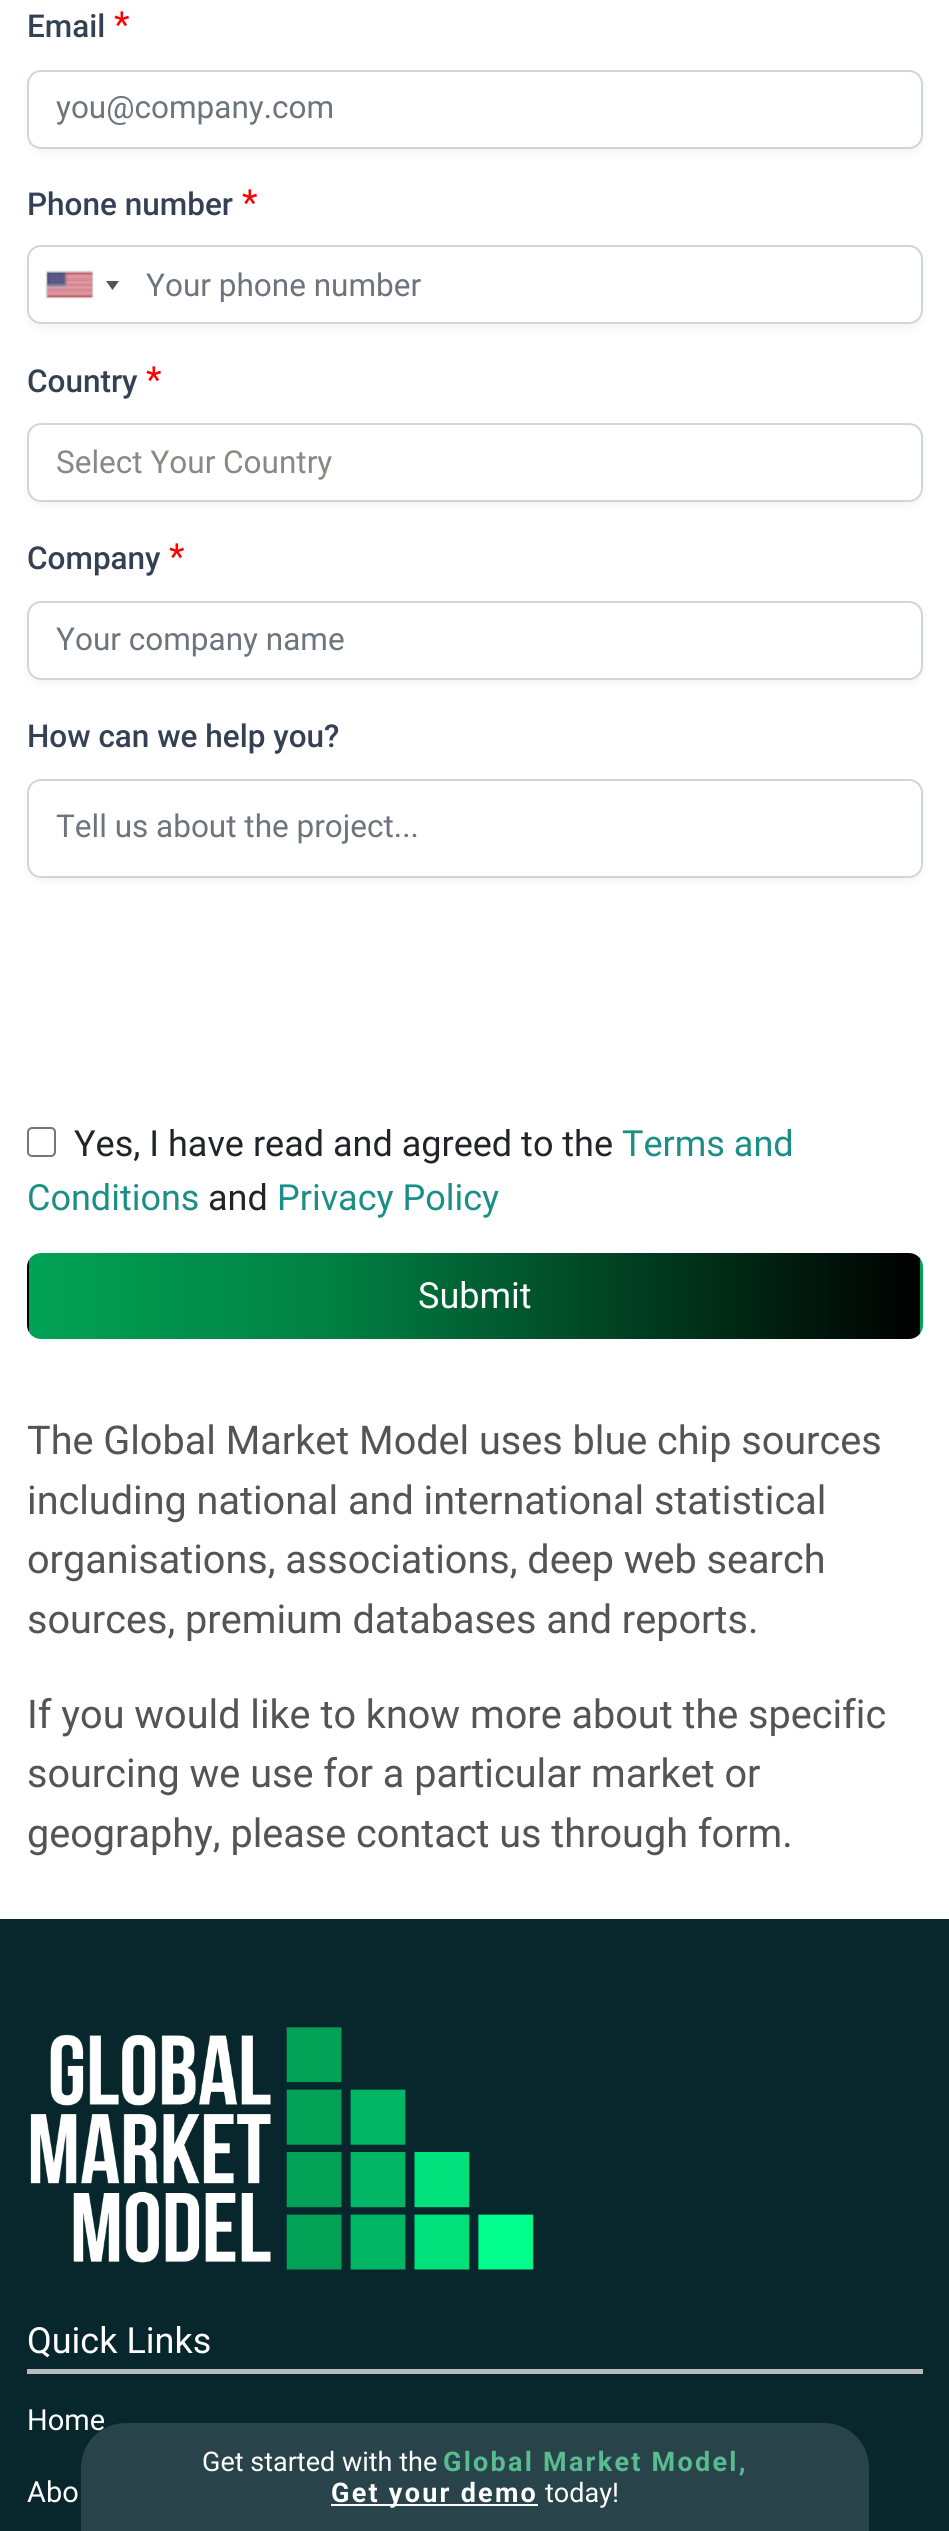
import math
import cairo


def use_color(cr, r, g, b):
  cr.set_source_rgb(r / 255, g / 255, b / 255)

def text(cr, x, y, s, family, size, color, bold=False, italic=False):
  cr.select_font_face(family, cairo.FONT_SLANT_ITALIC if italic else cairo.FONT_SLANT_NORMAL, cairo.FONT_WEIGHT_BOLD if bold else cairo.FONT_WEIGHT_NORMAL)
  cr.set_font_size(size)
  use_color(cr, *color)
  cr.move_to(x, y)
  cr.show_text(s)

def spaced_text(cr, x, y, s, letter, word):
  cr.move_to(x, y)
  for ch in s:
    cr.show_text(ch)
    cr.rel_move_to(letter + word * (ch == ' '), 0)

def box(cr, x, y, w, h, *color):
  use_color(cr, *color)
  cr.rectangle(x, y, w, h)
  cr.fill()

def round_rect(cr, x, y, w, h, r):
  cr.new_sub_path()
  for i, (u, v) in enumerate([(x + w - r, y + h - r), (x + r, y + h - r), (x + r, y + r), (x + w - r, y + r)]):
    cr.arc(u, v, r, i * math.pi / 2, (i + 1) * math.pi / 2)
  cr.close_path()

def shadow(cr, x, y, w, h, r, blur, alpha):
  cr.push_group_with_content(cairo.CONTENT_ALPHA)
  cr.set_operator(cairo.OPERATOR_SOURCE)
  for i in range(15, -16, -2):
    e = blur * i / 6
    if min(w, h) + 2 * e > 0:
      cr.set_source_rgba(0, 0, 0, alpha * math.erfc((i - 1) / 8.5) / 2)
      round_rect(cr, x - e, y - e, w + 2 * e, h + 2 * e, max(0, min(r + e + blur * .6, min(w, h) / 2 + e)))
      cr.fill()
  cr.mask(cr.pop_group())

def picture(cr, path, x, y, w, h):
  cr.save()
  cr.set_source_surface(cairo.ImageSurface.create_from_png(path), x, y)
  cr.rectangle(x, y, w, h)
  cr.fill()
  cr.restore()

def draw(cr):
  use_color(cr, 255, 255, 255)
  cr.paint()
  cr.save()
  cr.set_fill_rule(cairo.FILL_RULE_EVEN_ODD)
  cr.new_path()
  cr.move_to(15, 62)
  cr.line_to(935, 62)
  cr.line_to(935, 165)
  cr.line_to(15, 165)
  cr.close_path()
  cr.move_to(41, 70)
  cr.line_to(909, 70)
  cr.curve_to(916.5, 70, 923, 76.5, 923, 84)
  cr.line_to(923, 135)
  cr.curve_to(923, 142.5, 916.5, 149, 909, 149)
  cr.line_to(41, 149)
  cr.curve_to(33.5, 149, 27, 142.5, 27, 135)
  cr.line_to(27, 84)
  cr.curve_to(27, 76.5, 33.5, 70, 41, 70)
  cr.close_path()
  cr.clip()
  use_color(cr, 16, 24, 40)
  shadow(cr, 27, 74, 896, 79, 14, 3.5, 0.05)
  cr.restore()
  round_rect(cr, 28, 71, 894, 77, 13)
  use_color(cr, 208, 213, 221)
  cr.stroke()
  cr.save()
  cr.set_fill_rule(cairo.FILL_RULE_EVEN_ODD)
  cr.new_path()
  cr.move_to(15, 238)
  cr.line_to(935, 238)
  cr.line_to(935, 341)
  cr.line_to(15, 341)
  cr.close_path()
  cr.move_to(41, 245)
  cr.line_to(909, 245)
  cr.curve_to(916.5, 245, 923, 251.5, 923, 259)
  cr.line_to(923, 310)
  cr.curve_to(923, 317.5, 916.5, 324, 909, 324)
  cr.line_to(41, 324)
  cr.curve_to(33.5, 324, 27, 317.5, 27, 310)
  cr.line_to(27, 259)
  cr.curve_to(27, 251.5, 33.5, 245, 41, 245)
  cr.close_path()
  cr.clip()
  use_color(cr, 16, 24, 40)
  shadow(cr, 27, 250, 896, 79, 14, 3.5, 0.05)
  cr.restore()
  round_rect(cr, 28, 246, 894, 77, 13)
  cr.stroke()
  use_color(cr, 136, 136, 136)
  shadow(cr, 47, 272, 45, 25, 0, 1, 1)
  box(cr, 47, 272, 45, 25, 219, 219, 219)
  picture(cr, "img_01.png", 47, 272, 46, 26)
  use_color(cr, 85, 85, 85)
  cr.new_path()
  cr.move_to(106, 281)
  cr.line_to(119, 281)
  cr.line_to(112.5, 290)
  cr.close_path()
  cr.fill()
  cr.save()
  cr.set_fill_rule(cairo.FILL_RULE_EVEN_ODD)
  cr.new_path()
  cr.move_to(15, 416)
  cr.line_to(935, 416)
  cr.line_to(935, 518)
  cr.line_to(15, 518)
  cr.close_path()
  cr.move_to(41, 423)
  cr.line_to(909, 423)
  cr.curve_to(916.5, 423, 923, 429.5, 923, 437)
  cr.line_to(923, 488)
  cr.curve_to(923, 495.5, 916.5, 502, 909, 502)
  cr.line_to(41, 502)
  cr.curve_to(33.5, 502, 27, 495.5, 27, 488)
  cr.line_to(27, 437)
  cr.curve_to(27, 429.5, 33.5, 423, 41, 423)
  cr.close_path()
  cr.clip()
  use_color(cr, 16, 24, 40)
  shadow(cr, 27, 428, 896, 78, 14, 3.5, 0.05)
  cr.restore()
  round_rect(cr, 28, 424, 894, 77, 13)
  use_color(cr, 208, 213, 221)
  cr.stroke()
  cr.save()
  cr.set_fill_rule(cairo.FILL_RULE_EVEN_ODD)
  cr.new_path()
  cr.move_to(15, 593)
  cr.line_to(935, 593)
  cr.line_to(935, 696)
  cr.line_to(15, 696)
  cr.close_path()
  cr.move_to(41, 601)
  cr.line_to(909, 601)
  cr.curve_to(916.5, 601, 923, 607.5, 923, 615)
  cr.line_to(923, 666)
  cr.curve_to(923, 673.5, 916.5, 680, 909, 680)
  cr.line_to(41, 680)
  cr.curve_to(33.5, 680, 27, 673.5, 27, 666)
  cr.line_to(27, 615)
  cr.curve_to(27, 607.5, 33.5, 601, 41, 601)
  cr.close_path()
  cr.clip()
  use_color(cr, 16, 24, 40)
  shadow(cr, 27, 605, 896, 79, 14, 3.5, 0.05)
  cr.restore()
  round_rect(cr, 28, 602, 894, 77, 13)
  cr.stroke()
  cr.save()
  cr.set_fill_rule(cairo.FILL_RULE_EVEN_ODD)
  cr.new_path()
  cr.move_to(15, 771)
  cr.line_to(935, 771)
  cr.line_to(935, 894)
  cr.line_to(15, 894)
  cr.close_path()
  cr.move_to(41, 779)
  cr.line_to(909, 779)
  cr.curve_to(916.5, 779, 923, 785.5, 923, 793)
  cr.line_to(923, 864)
  cr.curve_to(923, 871.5, 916.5, 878, 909, 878)
  cr.line_to(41, 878)
  cr.curve_to(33.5, 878, 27, 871.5, 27, 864)
  cr.line_to(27, 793)
  cr.curve_to(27, 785.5, 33.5, 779, 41, 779)
  cr.close_path()
  cr.clip()
  use_color(cr, 16, 24, 40)
  shadow(cr, 27, 783, 896, 99, 14, 3.5, 0.05)
  cr.restore()
  round_rect(cr, 28, 780, 894, 97, 13)
  cr.stroke()
  round_rect(cr, 28, 1128, 27, 28, 4)
  use_color(cr, 118, 118, 118)
  cr.stroke()
  cr.save()
  round_rect(cr, 27, 1253, 896, 86, 14)
  cr.clip()
  gradient = cairo.LinearGradient(-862, 1296, 29, 1296)
  gradient.add_color_stop_rgba(0, 0.004, 0.635, 0.333, 1)
  gradient.add_color_stop_rgba(0.34, 0.004, 0.502, 0.263, 1)
  gradient.add_color_stop_rgba(1, 0, 0, 0, 1)
  cr.set_source(gradient)
  cr.rectangle(27, 1253, 2, 86)
  cr.fill()
  gradient = cairo.LinearGradient(29, 1296, 920, 1296)
  gradient.add_color_stop_rgba(0, 0.004, 0.635, 0.333, 1)
  gradient.add_color_stop_rgba(0.34, 0.004, 0.502, 0.263, 1)
  gradient.add_color_stop_rgba(1, 0, 0, 0, 1)
  cr.set_source(gradient)
  cr.rectangle(29, 1253, 891, 86)
  cr.fill()
  gradient = cairo.LinearGradient(920, 1296, 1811, 1296)
  gradient.add_color_stop_rgba(0, 0.004, 0.635, 0.333, 1)
  gradient.add_color_stop_rgba(0.34, 0.004, 0.502, 0.263, 1)
  gradient.add_color_stop_rgba(1, 0, 0, 0, 1)
  cr.set_source(gradient)
  cr.rectangle(920, 1253, 3, 86)
  cr.fill()
  cr.restore()
  box(cr, 0, 1919, 949, 612, 8, 39, 44)
  picture(cr, "img_02.png", 30, 2027, 504, 243)
  box(cr, 27, 2369, 896, 5, 187, 187, 187)
  text(cr, 27, 37, "Email", "Roboto Medium", 31.5, (52, 64, 84))
  text(cr, 114, 37, "*", "Roboto", 36, (255, 0, 0))
  text(cr, 56, 118, "you@company.com", "Roboto", 31.5, (108, 117, 125))
  text(cr, 27, 215, "Phone number", "Roboto Medium", 31.5, (52, 64, 84))
  text(cr, 242, 215, "*", "Roboto", 36, (255, 0, 0))
  cr.save()
  cr.rectangle(146, 266, 761, 36)
  cr.clip()
  text(cr, 146, 296, "Your phone number", "Roboto", 31.5, (108, 117, 125))
  cr.restore()
  text(cr, 27, 392, "Country", "Roboto Medium", 31.5, (52, 64, 84))
  text(cr, 146, 392, "*", "Roboto", 36, (255, 0, 0))
  text(cr, 56, 473, "Select Your Country", "Roboto", 31.5, (137, 137, 131))
  text(cr, 27, 569, "Company", "Roboto Medium", 31.5, (52, 64, 84))
  text(cr, 169, 569, "*", "Roboto", 36, (255, 0, 0))
  text(cr, 56, 650, "Your company name", "Roboto", 31.5, (108, 117, 125))
  text(cr, 27, 747, "How can we help you?", "Roboto Medium", 31.5, (52, 64, 84))
  text(cr, 56, 837, "Tell us about the project...", "Roboto", 31.5, (108, 117, 125))
  text(cr, 74, 1156, "Yes, I have read and agreed to the", "Roboto", 36, (33, 37, 41))
  text(cr, 622, 1156, "Terms and", "Roboto", 36, (27, 142, 134))
  text(cr, 27, 1210, "Conditions", "Roboto", 36, (27, 142, 134))
  text(cr, 208, 1210, "and", "Roboto", 36, (33, 37, 41))
  text(cr, 277, 1210, "Privacy Policy", "Roboto", 36, (27, 142, 134))
  text(cr, 418, 1308, "Submit", "Roboto", 36, (255, 255, 255))
  text(cr, 27, 1454, "The Global Market Model uses blue chip sources", "Roboto", 39.6, (84, 84, 84))
  text(cr, 27, 1514, "including national and international statistical", "Roboto", 39.6, (84, 84, 84))
  text(cr, 27, 1573, "organisations, associations, deep web search", "Roboto", 39.6, (84, 84, 84))
  text(cr, 27, 1633, "sources, premium databases and reports.", "Roboto", 39.6, (84, 84, 84))
  text(cr, 27, 1728, "If you would like to know more about the specific", "Roboto", 39.6, (84, 84, 84))
  text(cr, 27, 1787, "sourcing we use for a particular market or", "Roboto", 39.6, (84, 84, 84))
  text(cr, 27, 1847, "geography, please contact us through form.", "Roboto", 39.6, (84, 84, 84))
  text(cr, 27, 2353, "Quick Links", "Roboto", 36, (255, 255, 255))
  text(cr, 27, 2430, "Home", "Roboto", 29, (255, 255, 255))
  text(cr, 27, 2502, "Abo", "Roboto", 29, (255, 255, 255))
  use_color(cr, 40, 68, 74)
  cr.new_path()
  cr.move_to(126, 2423)
  cr.line_to(824, 2423)
  cr.curve_to(849, 2423, 869, 2443, 869, 2468)
  cr.line_to(869, 2531)
  cr.line_to(81, 2531)
  cr.line_to(81, 2468)
  cr.curve_to(81, 2443, 101, 2423, 126, 2423)
  cr.close_path()
  cr.fill()
  text(cr, 202, 2471, "Get started with the", "Roboto", 27, (255, 255, 255))
  cr.select_font_face("Roboto", cairo.FONT_SLANT_NORMAL, cairo.FONT_WEIGHT_BOLD)
  use_color(cr, 89, 188, 143)
  spaced_text(cr, 443, 2471, "Global Market Model,", 2.25, 0)
  box(cr, 331, 2504, 207, 2, 255, 255, 255)
  spaced_text(cr, 331, 2502, "Get your demo", 2.25, 0)
  text(cr, 545, 2502, "today!", "Roboto", 27, (255, 255, 255))


surface = cairo.ImageSurface(cairo.FORMAT_RGB24, 949, 2531)
cr = cairo.Context(surface)
options = cairo.FontOptions()
options.set_hint_metrics(cairo.HINT_METRICS_OFF)
options.set_hint_style(cairo.HINT_STYLE_NONE)
cr.set_font_options(options)
cr.set_miter_limit(4)
draw(cr)
surface.write_to_png("out.png")
